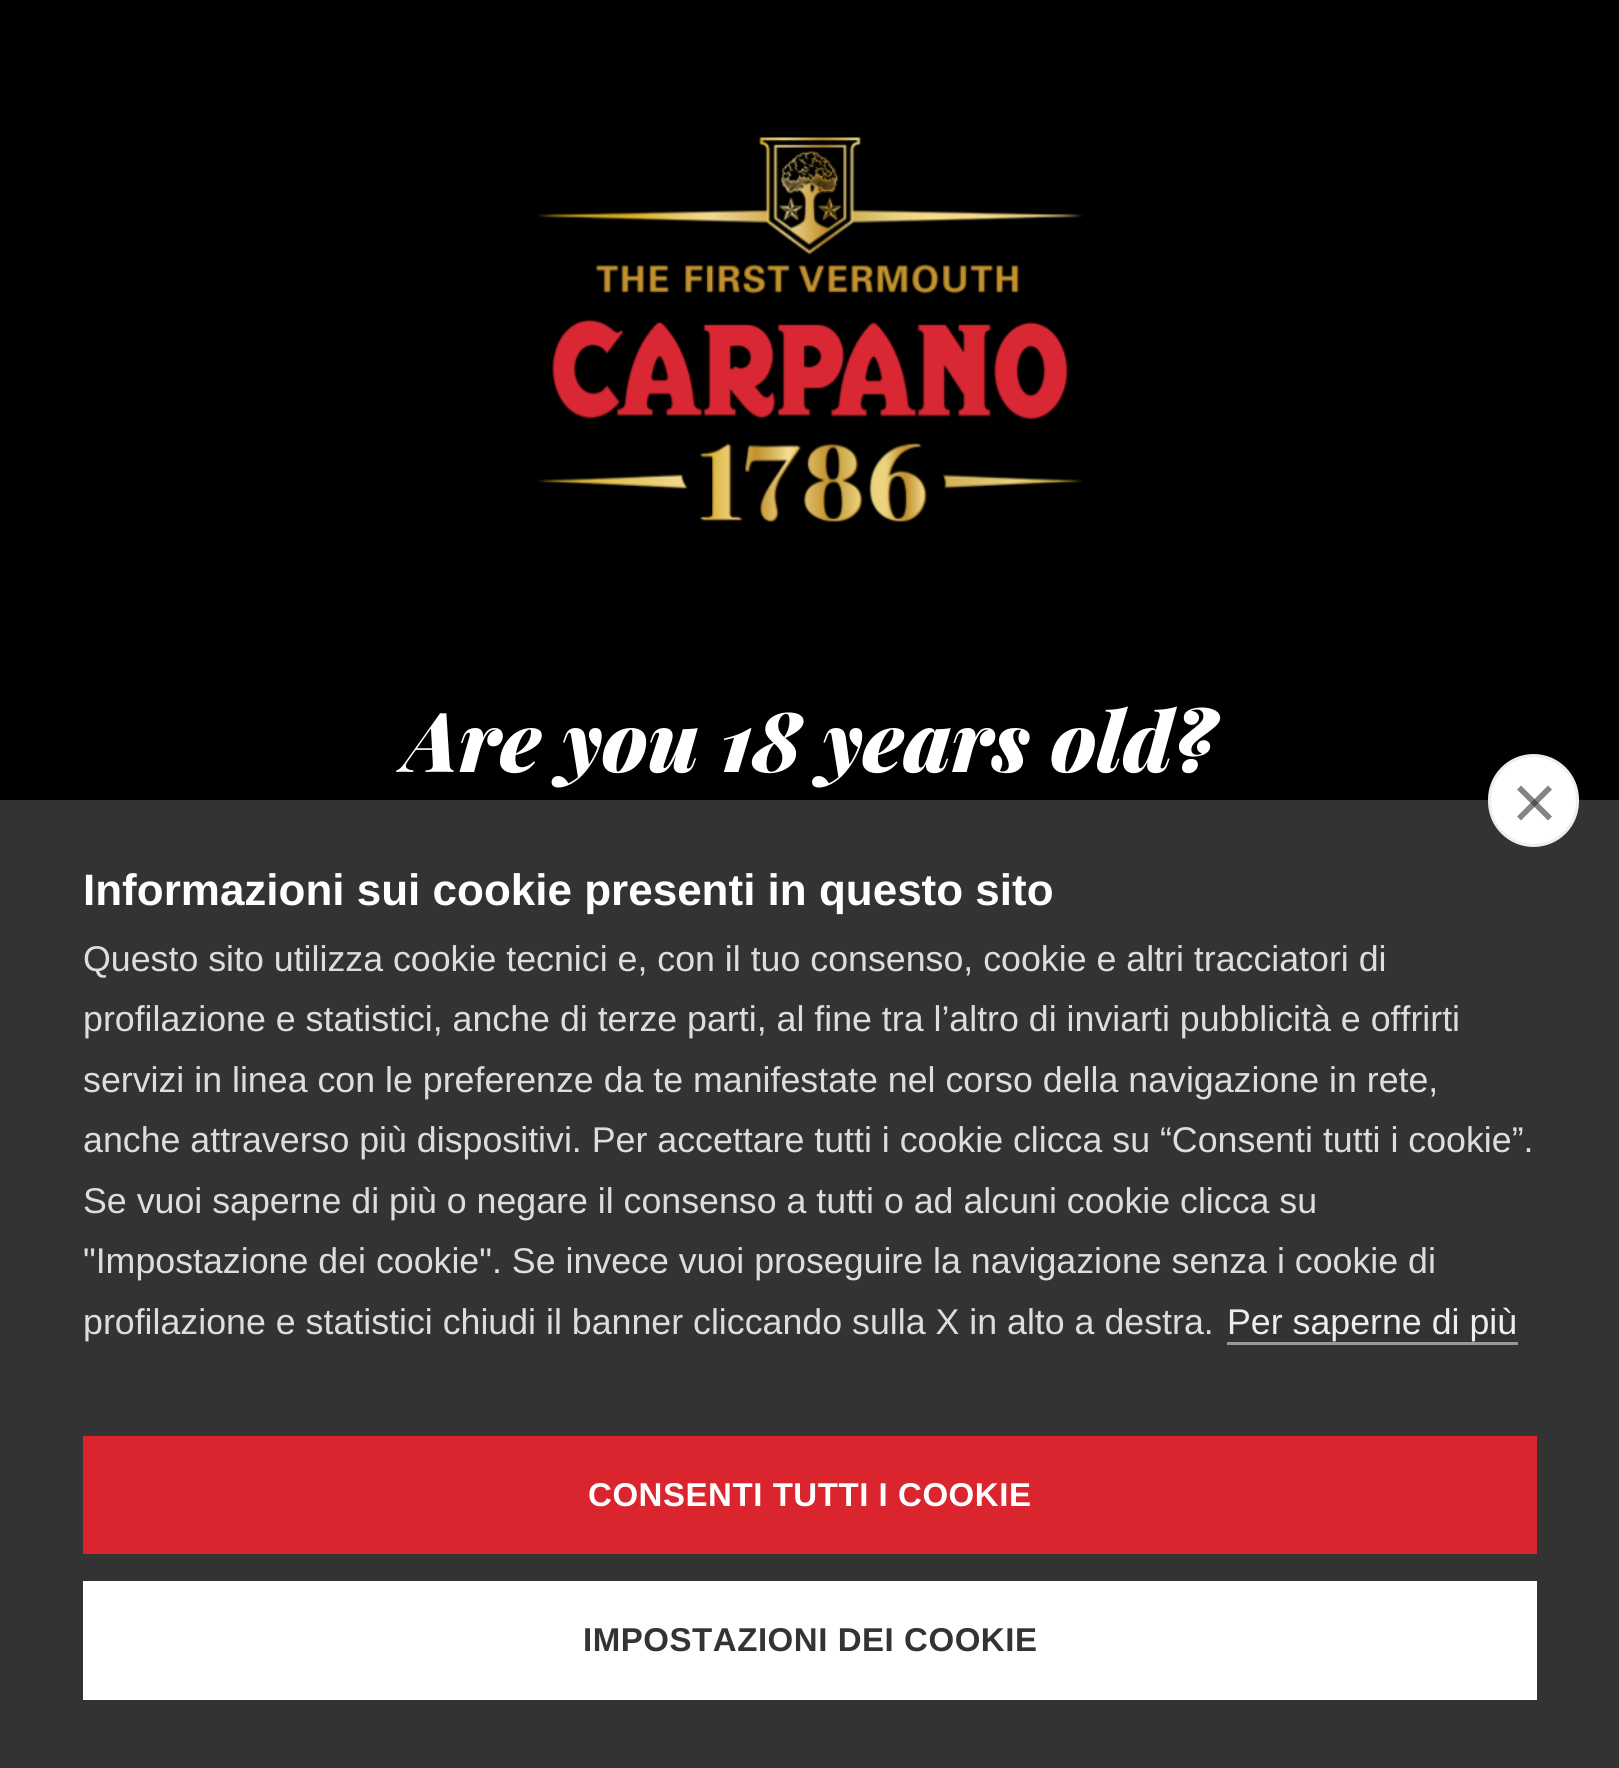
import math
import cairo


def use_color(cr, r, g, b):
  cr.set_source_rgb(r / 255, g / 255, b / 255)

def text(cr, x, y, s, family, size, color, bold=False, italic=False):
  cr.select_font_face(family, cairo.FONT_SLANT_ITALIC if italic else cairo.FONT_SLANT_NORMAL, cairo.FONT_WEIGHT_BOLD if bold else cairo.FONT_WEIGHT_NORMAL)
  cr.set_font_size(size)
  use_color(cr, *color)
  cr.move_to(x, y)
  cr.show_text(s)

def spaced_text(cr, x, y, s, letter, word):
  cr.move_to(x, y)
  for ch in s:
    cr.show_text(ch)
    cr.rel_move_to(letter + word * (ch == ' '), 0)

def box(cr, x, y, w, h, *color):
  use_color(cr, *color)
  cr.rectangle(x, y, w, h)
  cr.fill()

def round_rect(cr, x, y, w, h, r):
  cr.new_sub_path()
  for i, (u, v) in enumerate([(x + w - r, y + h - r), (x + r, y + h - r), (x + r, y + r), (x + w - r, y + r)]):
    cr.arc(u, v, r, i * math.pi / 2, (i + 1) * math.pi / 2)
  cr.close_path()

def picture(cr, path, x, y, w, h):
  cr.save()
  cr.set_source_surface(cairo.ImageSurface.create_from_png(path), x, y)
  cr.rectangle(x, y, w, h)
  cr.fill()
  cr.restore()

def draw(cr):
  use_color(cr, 0, 0, 0)
  cr.paint()
  picture(cr, "img_01.png", 537, 137, 546, 385)
  box(cr, 0, 800, 1619, 968, 51, 51, 51)
  use_color(cr, 255, 255, 255)
  round_rect(cr, 1489.5, 755.5, 88, 90, 44)
  cr.fill_preserve()
  use_color(cr, 238, 238, 238)
  cr.set_line_width(3)
  cr.stroke()
  use_color(cr, 133, 133, 133)
  cr.new_path()
  cr.move_to(1517, 816.5)
  cr.line_to(1548, 785.5)
  cr.line_to(1552, 789.5)
  cr.line_to(1521, 820.5)
  cr.close_path()
  cr.fill()
  cr.set_source_rgba(0.2, 0.2, 0.2, 0.6)
  cr.new_path()
  cr.move_to(1521, 785.5)
  cr.line_to(1552, 816.5)
  cr.line_to(1548, 820.5)
  cr.line_to(1517, 789.5)
  cr.close_path()
  cr.fill()
  box(cr, 1227, 1342, 291, 3, 153, 153, 153)
  box(cr, 83, 1436, 1454, 118, 218, 37, 47)
  box(cr, 83, 1581, 1454, 119, 255, 255, 255)
  text(cr, 404, 772, "Are you 18 years old?", "Playfair Display Black", 82.5, (255, 255, 255), italic=True)
  text(cr, 83, 905, "Informazioni sui cookie presenti in questo sito", "Liberation Sans", 44, (255, 255, 255), bold=True)
  text(cr, 83, 971, "Questo sito utilizza cookie tecnici e, con il tuo consenso, cookie e altri tracciatori di", "Liberation Sans", 35.75, (221, 221, 221))
  text(cr, 83, 1031, "profilazione e statistici, anche di terze parti, al fine tra l’altro di inviarti pubblicità e offrirti", "Liberation Sans", 35.75, (221, 221, 221))
  text(cr, 83, 1092, "servizi in linea con le preferenze da te manifestate nel corso della navigazione in rete,", "Liberation Sans", 35.75, (221, 221, 221))
  text(cr, 83, 1152, "anche attraverso più dispositivi. Per accettare tutti i cookie clicca su “Consenti tutti i cookie”.", "Liberation Sans", 35.75, (221, 221, 221))
  text(cr, 83, 1213, "Se vuoi saperne di più o negare il consenso a tutti o ad alcuni cookie clicca su", "Liberation Sans", 35.75, (221, 221, 221))
  text(cr, 83, 1273, "\"Impostazione dei cookie\". Se invece vuoi proseguire la navigazione senza i cookie di", "Liberation Sans", 35.75, (221, 221, 221))
  text(cr, 83, 1334, "profilazione e statistici chiudi il banner cliccando sulla X in alto a destra.", "Liberation Sans", 35.75, (221, 221, 221))
  text(cr, 1227, 1334, "Per saperne di più", "Liberation Sans", 35.75, (238, 238, 238))
  cr.select_font_face("Liberation Sans", cairo.FONT_SLANT_NORMAL, cairo.FONT_WEIGHT_BOLD)
  cr.set_font_size(33)
  use_color(cr, 255, 255, 255)
  spaced_text(cr, 588, 1506, "CONSENTI TUTTI I COOKIE", 0.55, 0)
  use_color(cr, 51, 51, 51)
  spaced_text(cr, 583, 1651, "IMPOSTAZIONI DEI COOKIE", 0.55, 0)


surface = cairo.ImageSurface(cairo.FORMAT_RGB24, 1619, 1768)
cr = cairo.Context(surface)
options = cairo.FontOptions()
options.set_hint_metrics(cairo.HINT_METRICS_OFF)
options.set_hint_style(cairo.HINT_STYLE_NONE)
cr.set_font_options(options)
cr.set_miter_limit(4)
draw(cr)
surface.write_to_png("out.png")
